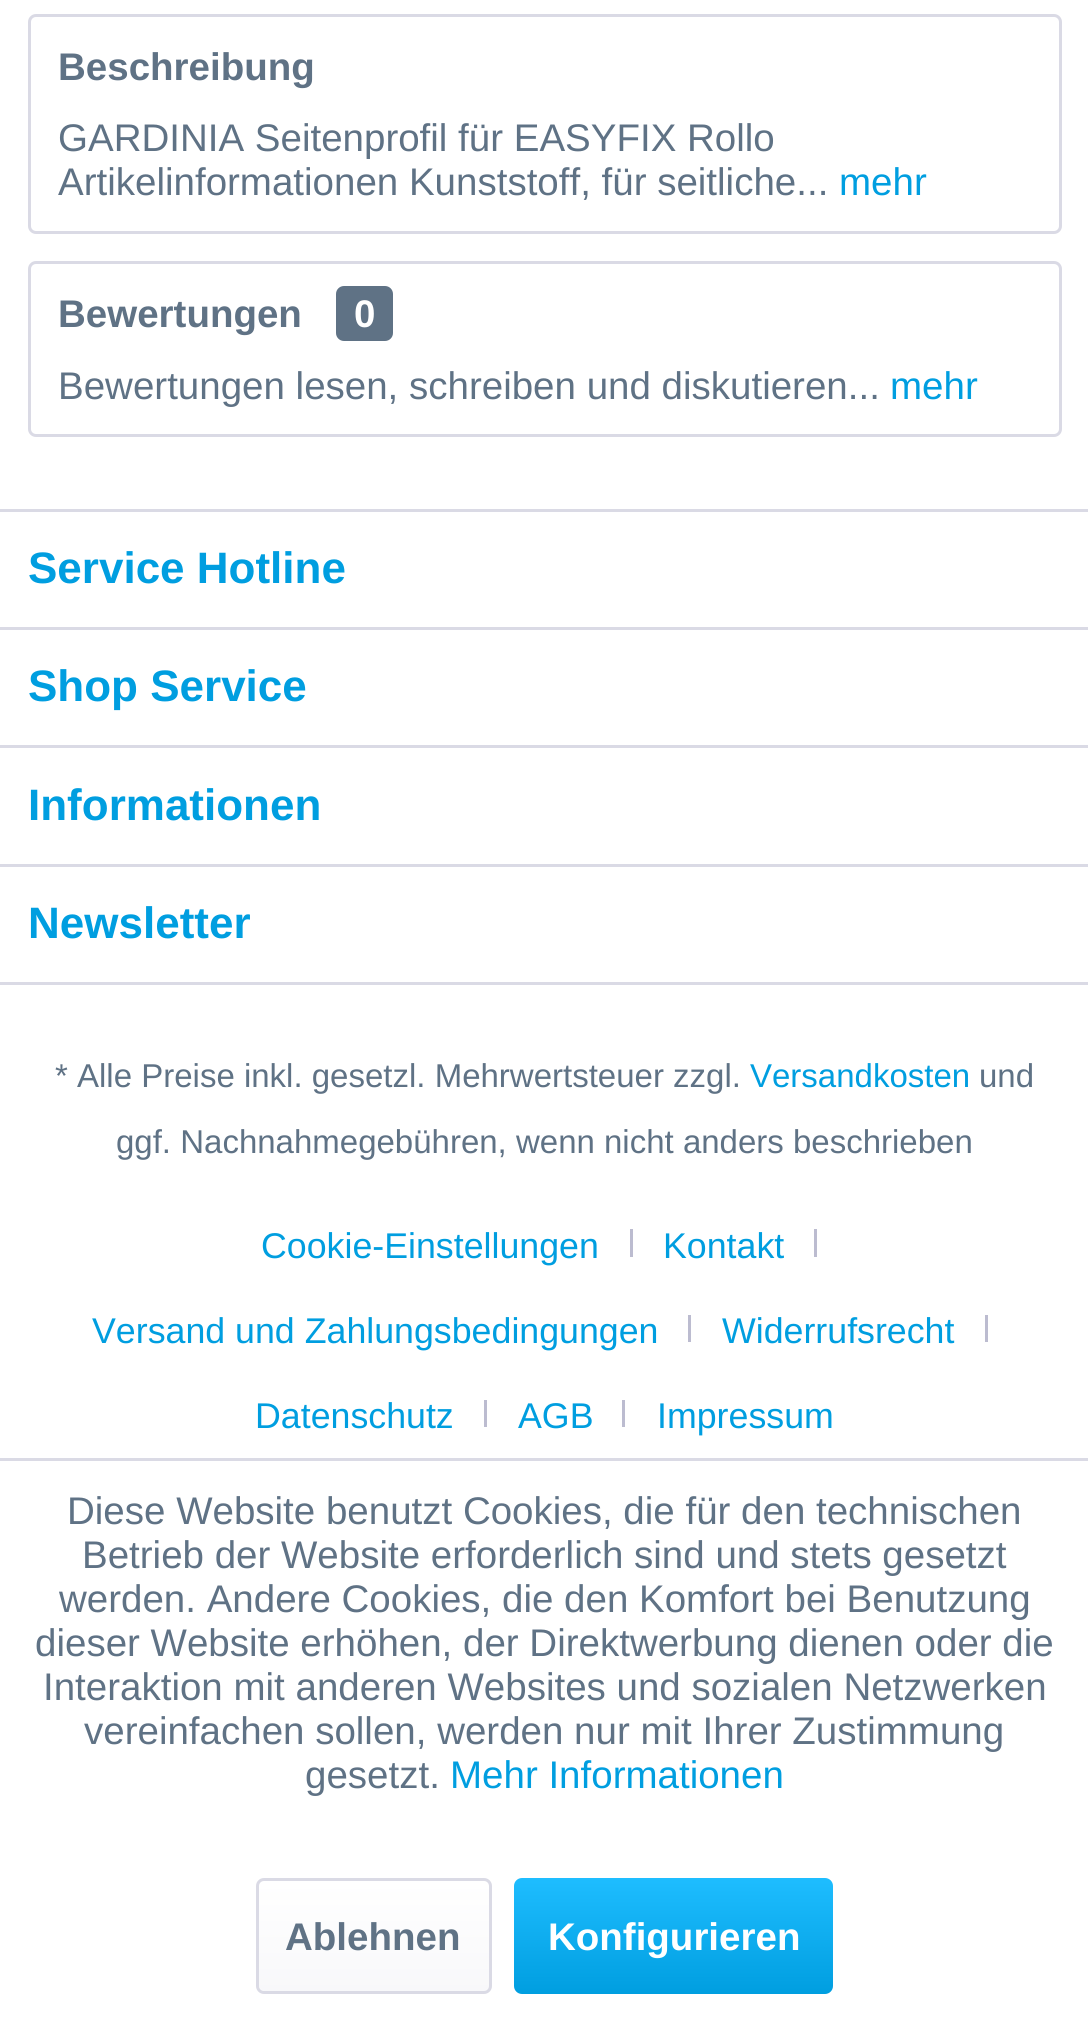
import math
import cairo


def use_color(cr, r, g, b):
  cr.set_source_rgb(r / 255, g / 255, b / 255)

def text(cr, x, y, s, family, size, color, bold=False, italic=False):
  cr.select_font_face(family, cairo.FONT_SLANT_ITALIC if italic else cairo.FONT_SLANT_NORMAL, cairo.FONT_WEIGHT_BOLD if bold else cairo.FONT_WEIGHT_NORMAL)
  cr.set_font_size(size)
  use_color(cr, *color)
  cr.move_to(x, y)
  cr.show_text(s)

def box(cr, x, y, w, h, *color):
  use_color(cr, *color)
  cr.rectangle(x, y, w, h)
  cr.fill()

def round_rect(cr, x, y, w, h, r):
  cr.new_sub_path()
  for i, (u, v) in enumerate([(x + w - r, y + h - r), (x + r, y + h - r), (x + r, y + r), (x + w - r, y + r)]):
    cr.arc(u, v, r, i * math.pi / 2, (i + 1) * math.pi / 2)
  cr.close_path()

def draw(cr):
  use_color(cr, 255, 255, 255)
  cr.paint()
  round_rect(cr, 29.5, 15.5, 1031, 217, 6.5)
  use_color(cr, 218, 218, 229)
  cr.set_line_width(3)
  cr.stroke()
  round_rect(cr, 29.5, 262.5, 1031, 173, 6.5)
  cr.stroke()
  use_color(cr, 95, 114, 133)
  round_rect(cr, 336, 286, 57, 55, 8)
  cr.fill()
  box(cr, 0, 509, 1088, 3, 218, 218, 229)
  box(cr, 0, 627, 1088, 3, 218, 218, 229)
  box(cr, 0, 745, 1088, 3, 218, 218, 229)
  box(cr, 0, 864, 1088, 3, 218, 218, 229)
  box(cr, 0, 982, 1088, 3, 218, 218, 229)
  box(cr, 630, 1229, 3, 28, 188, 188, 208)
  box(cr, 814, 1229, 3, 28, 188, 188, 208)
  box(cr, 688, 1315, 3, 27, 188, 188, 208)
  box(cr, 985, 1315, 3, 27, 188, 188, 208)
  box(cr, 484, 1400, 3, 27, 188, 188, 208)
  box(cr, 622, 1400, 3, 27, 188, 188, 208)
  box(cr, 0, 1458, 1088, 3, 218, 218, 229)
  gradient = cairo.LinearGradient(374, 1881, 374, 1991)
  gradient.add_color_stop_rgba(0, 1, 1, 1, 1)
  gradient.add_color_stop_rgba(1, 0.973, 0.973, 0.98, 1)
  cr.set_source(gradient)
  round_rect(cr, 259, 1881, 231, 110, 6)
  cr.fill()
  round_rect(cr, 257.5, 1879.5, 233, 113, 6.5)
  use_color(cr, 218, 218, 229)
  cr.stroke()
  gradient = cairo.LinearGradient(674, 1878, 674, 1994)
  gradient.add_color_stop_rgba(0, 0.118, 0.741, 1, 1)
  gradient.add_color_stop_rgba(1, 0, 0.62, 0.878, 1)
  cr.set_source(gradient)
  round_rect(cr, 514, 1878, 319, 116, 8)
  cr.fill()
  text(cr, 58, 80, "Beschreibung", "Liberation Sans", 38.5, (95, 114, 133), bold=True)
  text(cr, 58, 151, "GARDINIA Seitenprofil für EASYFIX Rollo", "Liberation Sans", 38.5, (95, 114, 133))
  text(cr, 58, 195, "Artikelinformationen Kunststoff, für seitliche...", "Liberation Sans", 38.5, (95, 114, 133))
  text(cr, 839, 195, "mehr", "Liberation Sans", 38.5, (0, 158, 224))
  text(cr, 58, 327, "Bewertungen", "Liberation Sans", 38.5, (95, 114, 133), bold=True)
  text(cr, 354, 327, "0", "Liberation Sans", 38.5, (255, 255, 255), bold=True)
  text(cr, 58, 399, "Bewertungen lesen, schreiben und diskutieren...", "Liberation Sans", 38.5, (95, 114, 133))
  text(cr, 890, 399, "mehr", "Liberation Sans", 38.5, (0, 158, 224))
  text(cr, 28, 583, "Service Hotline", "Liberation Sans", 44, (0, 158, 224), bold=True)
  text(cr, 28, 701, "Shop Service", "Liberation Sans", 44, (0, 158, 224), bold=True)
  text(cr, 28, 820, "Informationen", "Liberation Sans", 44, (0, 158, 224), bold=True)
  text(cr, 28, 938, "Newsletter", "Liberation Sans", 44, (0, 158, 224), bold=True)
  text(cr, 55, 1087, "* Alle Preise inkl. gesetzl. Mehrwertsteuer zzgl.", "Liberation Sans", 33, (95, 114, 133))
  text(cr, 750, 1087, "Versandkosten", "Liberation Sans", 33, (0, 158, 224))
  text(cr, 979, 1087, "und", "Liberation Sans", 33, (95, 114, 133))
  text(cr, 116, 1153, "ggf. Nachnahmegebühren, wenn nicht anders beschrieben", "Liberation Sans", 33, (95, 114, 133))
  text(cr, 261, 1258, "Cookie-Einstellungen", "Liberation Sans", 35.75, (0, 158, 224))
  text(cr, 663, 1258, "Kontakt", "Liberation Sans", 35.75, (0, 158, 224))
  text(cr, 92, 1343, "Versand und Zahlungsbedingungen", "Liberation Sans", 35.75, (0, 158, 224))
  text(cr, 722, 1343, "Widerrufsrecht", "Liberation Sans", 35.75, (0, 158, 224))
  text(cr, 255, 1428, "Datenschutz", "Liberation Sans", 35.75, (0, 158, 224))
  text(cr, 518, 1428, "AGB", "Liberation Sans", 35.75, (0, 158, 224))
  text(cr, 657, 1428, "Impressum", "Liberation Sans", 35.75, (0, 158, 224))
  text(cr, 67, 1524, "Diese Website benutzt Cookies, die für den technischen", "Liberation Sans", 38.5, (95, 114, 133))
  text(cr, 82, 1568, "Betrieb der Website erforderlich sind und stets gesetzt", "Liberation Sans", 38.5, (95, 114, 133))
  text(cr, 59, 1612, "werden. Andere Cookies, die den Komfort bei Benutzung", "Liberation Sans", 38.5, (95, 114, 133))
  text(cr, 35, 1656, "dieser Website erhöhen, der Direktwerbung dienen oder die", "Liberation Sans", 38.5, (95, 114, 133))
  text(cr, 43, 1700, "Interaktion mit anderen Websites und sozialen Netzwerken", "Liberation Sans", 38.5, (95, 114, 133))
  text(cr, 84, 1744, "vereinfachen sollen, werden nur mit Ihrer Zustimmung", "Liberation Sans", 38.5, (95, 114, 133))
  text(cr, 305, 1788, "gesetzt.", "Liberation Sans", 38.5, (95, 114, 133))
  text(cr, 450, 1788, "Mehr Informationen", "Liberation Sans", 38.5, (0, 158, 224))
  text(cr, 285, 1950, "Ablehnen", "Liberation Sans", 38.5, (95, 114, 133), bold=True)
  text(cr, 548, 1950, "Konfigurieren", "Liberation Sans", 38.5, (255, 255, 255), bold=True)


surface = cairo.ImageSurface(cairo.FORMAT_RGB24, 1088, 2020)
cr = cairo.Context(surface)
options = cairo.FontOptions()
options.set_hint_metrics(cairo.HINT_METRICS_OFF)
options.set_hint_style(cairo.HINT_STYLE_NONE)
cr.set_font_options(options)
cr.set_miter_limit(4)
draw(cr)
surface.write_to_png("out.png")
